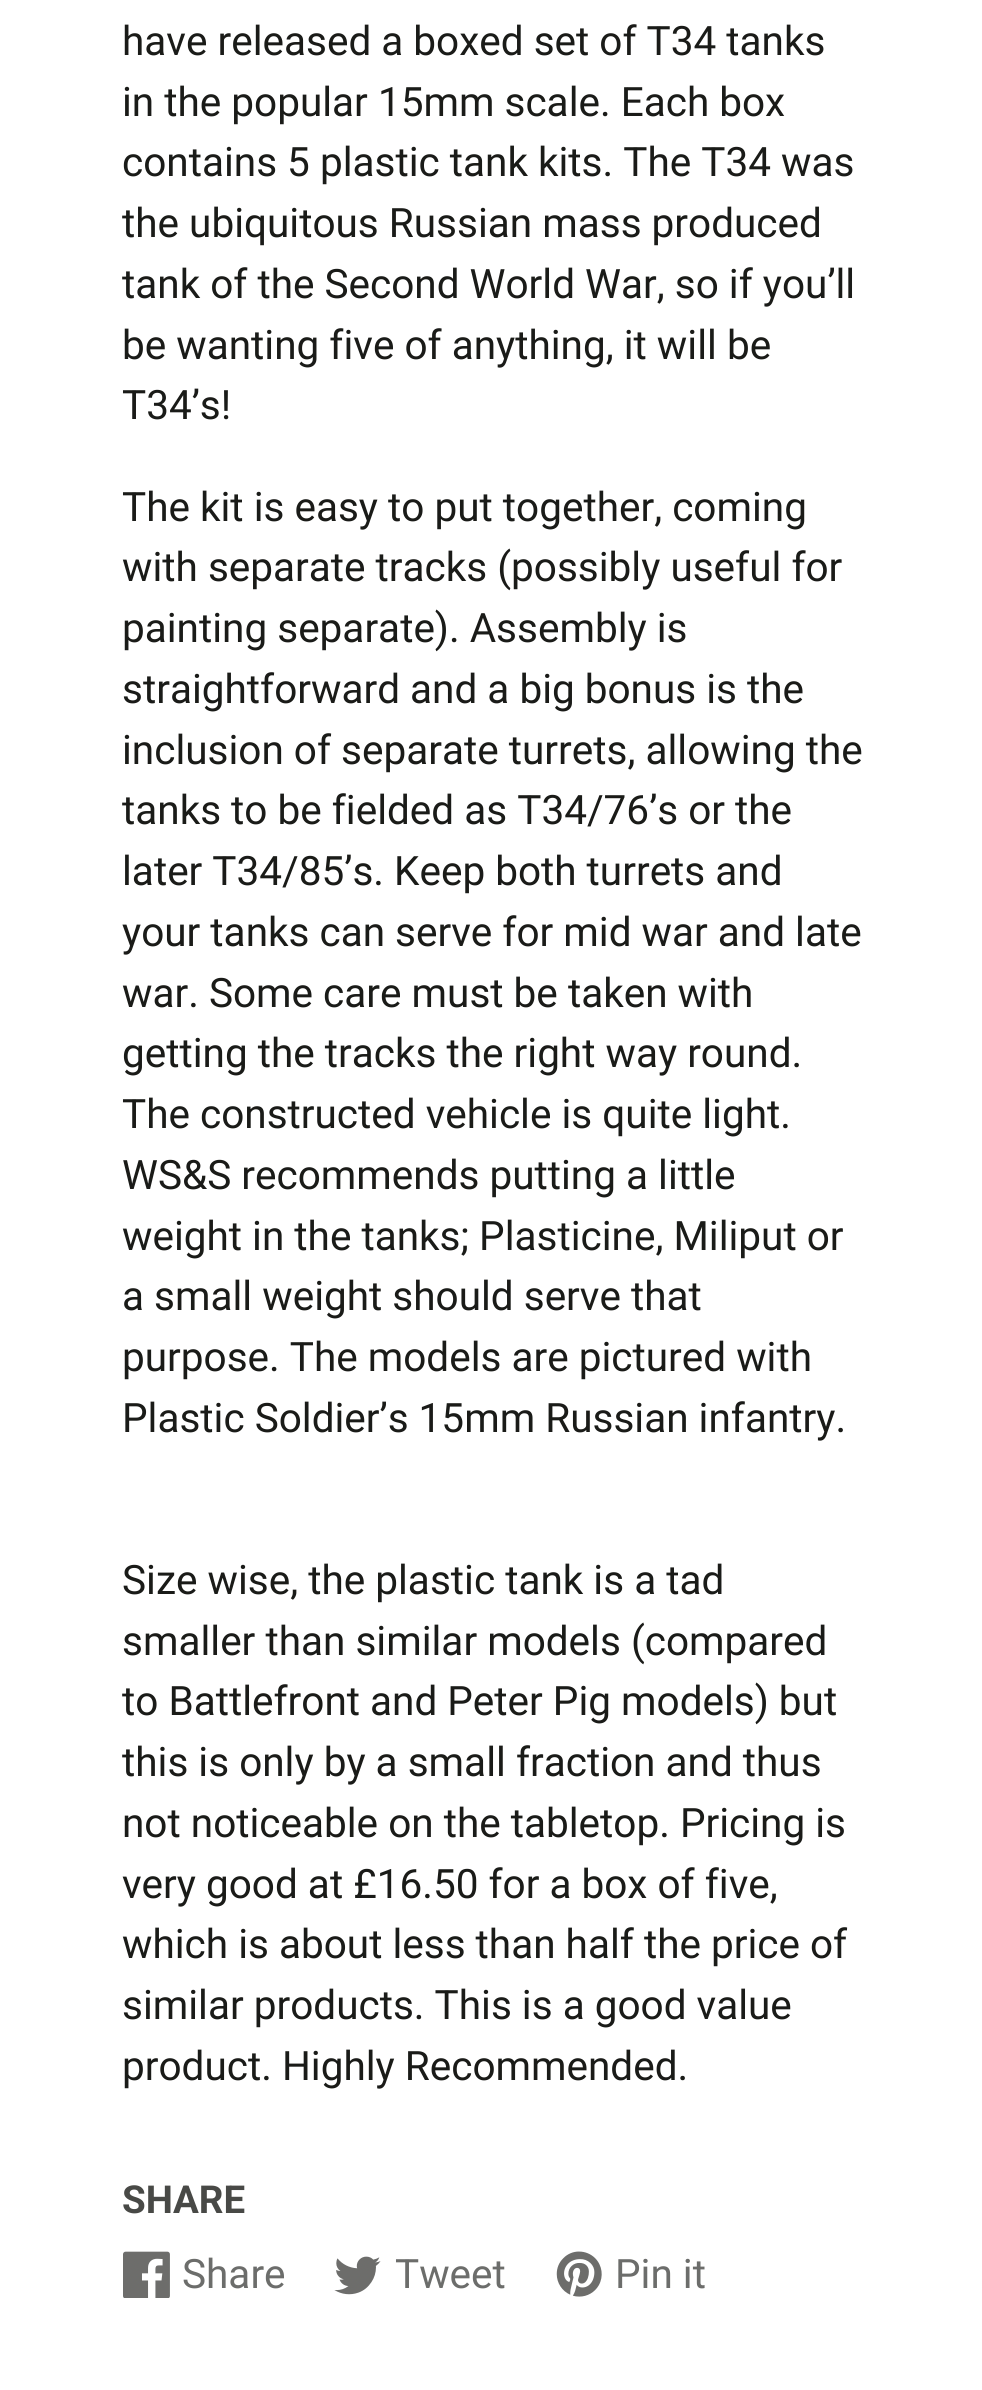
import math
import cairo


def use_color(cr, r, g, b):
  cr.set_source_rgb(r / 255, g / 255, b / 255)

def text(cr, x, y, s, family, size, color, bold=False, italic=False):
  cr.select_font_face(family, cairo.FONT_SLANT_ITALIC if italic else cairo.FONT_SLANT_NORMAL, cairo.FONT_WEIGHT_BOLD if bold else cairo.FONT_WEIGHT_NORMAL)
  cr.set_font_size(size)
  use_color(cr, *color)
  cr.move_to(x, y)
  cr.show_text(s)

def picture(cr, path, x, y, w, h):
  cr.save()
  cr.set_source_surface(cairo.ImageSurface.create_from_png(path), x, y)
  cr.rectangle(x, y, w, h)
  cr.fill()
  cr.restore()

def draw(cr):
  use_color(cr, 255, 255, 255)
  cr.paint()
  picture(cr, "img_01.png", 123, 2251, 47, 47)
  picture(cr, "img_02.png", 334, 2256, 47, 39)
  picture(cr, "img_03.png", 556, 2251, 46, 46)
  text(cr, 122, 55, "have released a boxed set of T34 tanks", "Roboto", 40.5, (26, 27, 24))
  text(cr, 122, 116, "in the popular 15mm scale. Each box", "Roboto", 40.5, (26, 27, 24))
  text(cr, 122, 176, "contains 5 plastic tank kits. The T34 was", "Roboto", 40.5, (26, 27, 24))
  text(cr, 122, 237, "the ubiquitous Russian mass produced", "Roboto", 40.5, (26, 27, 24))
  text(cr, 122, 298, "tank of the Second World War, so if you’ll", "Roboto", 40.5, (26, 27, 24))
  text(cr, 122, 359, "be wanting five of anything, it will be", "Roboto", 40.5, (26, 27, 24))
  text(cr, 122, 419, "T34’s!", "Roboto", 40.5, (26, 27, 24))
  text(cr, 122, 521, "The kit is easy to put together, coming", "Roboto", 40.5, (26, 27, 24))
  text(cr, 122, 581, "with separate tracks (possibly useful for", "Roboto", 40.5, (26, 27, 24))
  text(cr, 122, 642, "painting separate). Assembly is", "Roboto", 40.5, (26, 27, 24))
  text(cr, 122, 703, "straightforward and a big bonus is the", "Roboto", 40.5, (26, 27, 24))
  text(cr, 122, 764, "inclusion of separate turrets, allowing the", "Roboto", 40.5, (26, 27, 24))
  text(cr, 122, 824, "tanks to be fielded as T34/76’s or the", "Roboto", 40.5, (26, 27, 24))
  text(cr, 122, 885, "later T34/85’s. Keep both turrets and", "Roboto", 40.5, (26, 27, 24))
  text(cr, 122, 946, "your tanks can serve for mid war and late", "Roboto", 40.5, (26, 27, 24))
  text(cr, 122, 1007, "war. Some care must be taken with", "Roboto", 40.5, (26, 27, 24))
  text(cr, 122, 1067, "getting the tracks the right way round.", "Roboto", 40.5, (26, 27, 24))
  text(cr, 122, 1128, "The constructed vehicle is quite light.", "Roboto", 40.5, (26, 27, 24))
  text(cr, 122, 1189, "WS&S recommends putting a little", "Roboto", 40.5, (26, 27, 24))
  text(cr, 122, 1250, "weight in the tanks; Plasticine, Miliput or", "Roboto", 40.5, (26, 27, 24))
  text(cr, 122, 1310, "a small weight should serve that", "Roboto", 40.5, (26, 27, 24))
  text(cr, 122, 1371, "purpose. The models are pictured with", "Roboto", 40.5, (26, 27, 24))
  text(cr, 122, 1432, "Plastic Soldier’s 15mm Russian infantry.", "Roboto", 40.5, (26, 27, 24))
  text(cr, 122, 1594, "Size wise, the plastic tank is a tad", "Roboto", 40.5, (26, 27, 24))
  text(cr, 122, 1655, "smaller than similar models (compared", "Roboto", 40.5, (26, 27, 24))
  text(cr, 122, 1715, "to Battlefront and Peter Pig models) but", "Roboto", 40.5, (26, 27, 24))
  text(cr, 122, 1776, "this is only by a small fraction and thus", "Roboto", 40.5, (26, 27, 24))
  text(cr, 122, 1837, "not noticeable on the tabletop. Pricing is", "Roboto", 40.5, (26, 27, 24))
  text(cr, 122, 1898, "very good at £16.50 for a box of five,", "Roboto", 40.5, (26, 27, 24))
  text(cr, 122, 1958, "which is about less than half the price of", "Roboto", 40.5, (26, 27, 24))
  text(cr, 122, 2019, "similar products. This is a good value", "Roboto", 40.5, (26, 27, 24))
  text(cr, 122, 2080, "product. Highly Recommended.", "Roboto", 40.5, (26, 27, 24))
  text(cr, 122, 2213, "SHARE", "Roboto", 38.5, (72, 73, 70), bold=True)
  text(cr, 182, 2288, "Share", "Roboto", 40.5, (108, 109, 107))
  text(cr, 395, 2288, "Tweet", "Roboto", 40.5, (108, 109, 107))
  text(cr, 615, 2288, "Pin it", "Roboto", 40.5, (108, 109, 107))


surface = cairo.ImageSurface(cairo.FORMAT_RGB24, 982, 2390)
cr = cairo.Context(surface)
options = cairo.FontOptions()
options.set_hint_metrics(cairo.HINT_METRICS_OFF)
options.set_hint_style(cairo.HINT_STYLE_NONE)
cr.set_font_options(options)
cr.set_miter_limit(4)
draw(cr)
surface.write_to_png("out.png")
